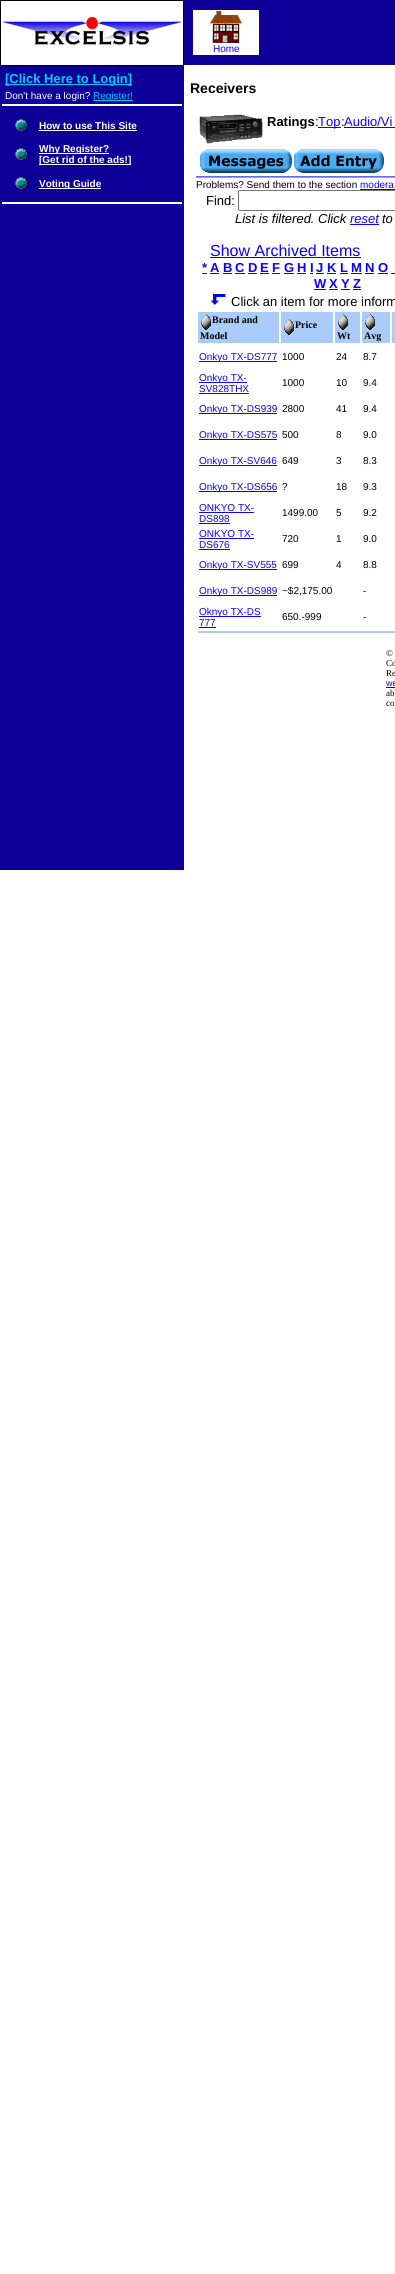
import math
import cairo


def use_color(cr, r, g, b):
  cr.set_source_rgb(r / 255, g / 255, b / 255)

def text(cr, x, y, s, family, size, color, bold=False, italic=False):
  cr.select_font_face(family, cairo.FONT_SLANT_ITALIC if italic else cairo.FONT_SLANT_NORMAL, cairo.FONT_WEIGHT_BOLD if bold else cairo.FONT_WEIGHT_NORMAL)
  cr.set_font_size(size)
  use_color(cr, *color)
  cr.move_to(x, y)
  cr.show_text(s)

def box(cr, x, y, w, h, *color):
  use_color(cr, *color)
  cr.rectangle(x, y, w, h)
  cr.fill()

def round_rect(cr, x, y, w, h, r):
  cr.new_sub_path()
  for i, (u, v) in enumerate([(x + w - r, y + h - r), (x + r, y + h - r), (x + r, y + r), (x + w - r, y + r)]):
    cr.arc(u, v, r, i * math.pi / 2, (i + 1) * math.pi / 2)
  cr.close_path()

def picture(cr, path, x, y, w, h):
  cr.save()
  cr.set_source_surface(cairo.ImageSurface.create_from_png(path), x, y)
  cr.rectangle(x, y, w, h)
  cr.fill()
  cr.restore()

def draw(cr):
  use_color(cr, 255, 255, 255)
  cr.paint()
  box(cr, 184, 0, 211, 65, 12, 0, 153)
  box(cr, 193, 10, 66, 45, 255, 255, 255)
  picture(cr, "img_01.png", 210, 11, 32, 32)
  cr.rectangle(0.5, 0.5, 183, 65)
  use_color(cr, 0, 0, 0)
  cr.set_line_width(1)
  cr.stroke()
  picture(cr, "img_02.png", 2, 17, 180, 28)
  box(cr, 0, 66, 184, 804, 12, 0, 153)
  box(cr, 5, 84, 127, 1, 0, 204, 255)
  box(cr, 93, 100, 40, 1, 0, 204, 255)
  box(cr, 2, 104, 180, 2, 255, 255, 255)
  box(cr, 2, 202, 180, 2, 255, 255, 255)
  picture(cr, "img_03.png", 15, 119, 12, 12)
  box(cr, 39, 130, 98, 1, 255, 255, 255)
  picture(cr, "img_03.png", 15, 148, 12, 12)
  box(cr, 39, 153, 70, 1, 255, 255, 255)
  box(cr, 39, 164, 92, 1, 255, 255, 255)
  picture(cr, "img_03.png", 15, 177, 12, 12)
  box(cr, 39, 188, 62, 1, 255, 255, 255)
  picture(cr, "img_04.png", 200, 149, 92, 24)
  picture(cr, "img_05.png", 294, 149, 90, 24)
  picture(cr, "img_06.png", 196, 176, 199, 2)
  box(cr, 360, 189, 35, 1, 12, 0, 255)
  round_rect(cr, 238.5, 190.5, 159, 20, 1.5)
  use_color(cr, 118, 118, 118)
  cr.stroke()
  box(cr, 350, 224, 29, 1, 12, 0, 255)
  box(cr, 210, 257, 151, 1, 12, 0, 255)
  box(cr, 202, 273, 5, 1, 12, 0, 255)
  box(cr, 210, 273, 9, 1, 12, 0, 255)
  box(cr, 223, 273, 9, 1, 12, 0, 255)
  box(cr, 235, 273, 10, 1, 12, 0, 255)
  box(cr, 248, 273, 9, 1, 12, 0, 255)
  box(cr, 260, 273, 9, 1, 12, 0, 255)
  box(cr, 272, 273, 8, 1, 12, 0, 255)
  box(cr, 284, 273, 10, 1, 12, 0, 255)
  box(cr, 297, 273, 9, 1, 12, 0, 255)
  box(cr, 310, 273, 3, 1, 12, 0, 255)
  box(cr, 316, 273, 8, 1, 12, 0, 255)
  box(cr, 327, 273, 9, 1, 12, 0, 255)
  box(cr, 340, 273, 8, 1, 12, 0, 255)
  box(cr, 351, 273, 11, 1, 12, 0, 255)
  box(cr, 365, 273, 9, 1, 12, 0, 255)
  box(cr, 378, 273, 10, 1, 12, 0, 255)
  box(cr, 391, 273, 4, 1, 12, 0, 255)
  box(cr, 314, 289, 12, 1, 12, 0, 255)
  box(cr, 329, 289, 9, 1, 12, 0, 255)
  box(cr, 341, 289, 9, 1, 12, 0, 255)
  box(cr, 353, 289, 8, 1, 12, 0, 255)
  picture(cr, "img_07.png", 211, 294, 15, 11)
  box(cr, 198, 312, 81, 31, 170, 204, 250)
  picture(cr, "img_08.png", 201, 314, 10, 16)
  box(cr, 281, 312, 52, 31, 170, 204, 250)
  picture(cr, "img_08.png", 284, 319, 10, 16)
  box(cr, 392, 312, 3, 31, 170, 204, 250)
  box(cr, 335, 312, 25, 31, 170, 204, 250)
  picture(cr, "img_08.png", 338, 314, 10, 16)
  box(cr, 362, 312, 28, 31, 170, 204, 250)
  picture(cr, "img_08.png", 365, 314, 10, 16)
  box(cr, 199, 361, 78, 1, 12, 0, 255)
  box(cr, 199, 382, 48, 1, 12, 0, 255)
  box(cr, 199, 393, 50, 1, 12, 0, 255)
  box(cr, 199, 413, 78, 1, 12, 0, 255)
  box(cr, 199, 439, 78, 1, 12, 0, 255)
  box(cr, 199, 465, 78, 1, 12, 0, 255)
  box(cr, 199, 491, 78, 1, 12, 0, 255)
  box(cr, 199, 512, 55, 1, 12, 0, 255)
  box(cr, 199, 523, 31, 1, 12, 0, 255)
  box(cr, 199, 538, 55, 1, 12, 0, 255)
  box(cr, 199, 549, 31, 1, 12, 0, 255)
  box(cr, 199, 569, 78, 1, 12, 0, 255)
  box(cr, 199, 595, 78, 1, 12, 0, 255)
  box(cr, 199, 616, 62, 1, 12, 0, 255)
  box(cr, 199, 627, 17, 1, 12, 0, 255)
  box(cr, 198, 631, 197, 2, 170, 204, 250)
  box(cr, 386, 687, 9, 1, 12, 0, 255)
  picture(cr, "img_09.png", 199, 114, 64, 30)
  box(cr, 318, 127, 23, 1, 12, 0, 255)
  box(cr, 344, 127, 51, 1, 12, 0, 255)
  text(cr, 213, 52, "Home", "Liberation Sans", 10, (12, 0, 255))
  text(cr, 5, 83, "[Click Here to Login]", "Liberation Sans", 13, (0, 204, 255), bold=True)
  text(cr, 5, 99, "Don't have a login?", "Liberation Sans", 10, (255, 255, 255))
  text(cr, 93, 99, "Register!", "Liberation Sans", 10, (0, 204, 255))
  text(cr, 39, 129, "How to use This Site", "Liberation Sans", 10, (255, 255, 255), bold=True)
  text(cr, 39, 152, "Why Register?", "Liberation Sans", 10, (255, 255, 255), bold=True)
  text(cr, 39, 163, "[Get rid of the ads!]", "Liberation Sans", 10, (255, 255, 255), bold=True)
  text(cr, 39, 187, "Voting Guide", "Liberation Sans", 10, (255, 255, 255), bold=True)
  text(cr, 196, 188, "Problems? Send them to the section", "Liberation Sans", 10, (0, 0, 0))
  text(cr, 360, 188, "modera", "Liberation Sans", 10, (12, 0, 255))
  text(cr, 206, 205, "Find:", "Liberation Sans", 13, (0, 0, 0))
  text(cr, 235, 223, "List is filtered. Click", "Liberation Sans", 13, (0, 0, 0), italic=True)
  text(cr, 350, 223, "reset", "Liberation Sans", 13, (12, 0, 255), italic=True)
  text(cr, 382, 223, "to", "Liberation Sans", 13, (0, 0, 0), italic=True)
  text(cr, 210, 256, "Show Archived Items", "Liberation Sans", 16, (12, 0, 255))
  text(cr, 202, 272, "*", "Liberation Sans", 13, (12, 0, 255), bold=True)
  text(cr, 210, 272, "A", "Liberation Sans", 13, (12, 0, 255), bold=True)
  text(cr, 223, 272, "B", "Liberation Sans", 13, (12, 0, 255), bold=True)
  text(cr, 235, 272, "C", "Liberation Sans", 13, (12, 0, 255), bold=True)
  text(cr, 248, 272, "D", "Liberation Sans", 13, (12, 0, 255), bold=True)
  text(cr, 260, 272, "E", "Liberation Sans", 13, (12, 0, 255), bold=True)
  text(cr, 272, 272, "F", "Liberation Sans", 13, (12, 0, 255), bold=True)
  text(cr, 284, 272, "G", "Liberation Sans", 13, (12, 0, 255), bold=True)
  text(cr, 297, 272, "H", "Liberation Sans", 13, (12, 0, 255), bold=True)
  text(cr, 310, 272, "I", "Liberation Sans", 13, (12, 0, 255), bold=True)
  text(cr, 316, 272, "J", "Liberation Sans", 13, (12, 0, 255), bold=True)
  text(cr, 327, 272, "K", "Liberation Sans", 13, (12, 0, 255), bold=True)
  text(cr, 340, 272, "L", "Liberation Sans", 13, (12, 0, 255), bold=True)
  text(cr, 351, 272, "M", "Liberation Sans", 13, (12, 0, 255), bold=True)
  text(cr, 365, 272, "N", "Liberation Sans", 13, (12, 0, 255), bold=True)
  text(cr, 378, 272, "O", "Liberation Sans", 13, (12, 0, 255), bold=True)
  text(cr, 314, 288, "W", "Liberation Sans", 13, (12, 0, 255), bold=True)
  text(cr, 329, 288, "X", "Liberation Sans", 13, (12, 0, 255), bold=True)
  text(cr, 341, 288, "Y", "Liberation Sans", 13, (12, 0, 255), bold=True)
  text(cr, 353, 288, "Z", "Liberation Sans", 13, (12, 0, 255), bold=True)
  text(cr, 231, 306, "Click an item for more inform", "Liberation Sans", 13, (0, 0, 0))
  text(cr, 212, 323, "Brand and", "Liberation Serif", 10, (0, 0, 0), bold=True)
  text(cr, 200, 339, "Model", "Liberation Serif", 10, (0, 0, 0), bold=True)
  text(cr, 295, 328, "Price", "Liberation Serif", 10, (0, 0, 0), bold=True)
  text(cr, 337, 339, "Wt", "Liberation Serif", 10, (0, 0, 0), bold=True)
  text(cr, 364, 339, "Avg", "Liberation Serif", 10, (0, 0, 0), bold=True)
  text(cr, 199, 360, "Onkyo TX-DS777", "Liberation Sans", 10, (12, 0, 255))
  text(cr, 282, 360, "1000", "Liberation Sans", 10, (0, 0, 0))
  text(cr, 336, 360, "24", "Liberation Sans", 10, (0, 0, 0))
  text(cr, 363, 360, "8.7", "Liberation Sans", 10, (0, 0, 0))
  text(cr, 199, 381, "Onkyo TX-", "Liberation Sans", 10, (12, 0, 255))
  text(cr, 199, 392, "SV828THX", "Liberation Sans", 10, (12, 0, 255))
  text(cr, 282, 386, "1000", "Liberation Sans", 10, (0, 0, 0))
  text(cr, 336, 386, "10", "Liberation Sans", 10, (0, 0, 0))
  text(cr, 363, 386, "9.4", "Liberation Sans", 10, (0, 0, 0))
  text(cr, 199, 412, "Onkyo TX-DS939", "Liberation Sans", 10, (12, 0, 255))
  text(cr, 282, 412, "2800", "Liberation Sans", 10, (0, 0, 0))
  text(cr, 336, 412, "41", "Liberation Sans", 10, (0, 0, 0))
  text(cr, 363, 412, "9.4", "Liberation Sans", 10, (0, 0, 0))
  text(cr, 199, 438, "Onkyo TX-DS575", "Liberation Sans", 10, (12, 0, 255))
  text(cr, 282, 438, "500", "Liberation Sans", 10, (0, 0, 0))
  text(cr, 336, 438, "8", "Liberation Sans", 10, (0, 0, 0))
  text(cr, 363, 438, "9.0", "Liberation Sans", 10, (0, 0, 0))
  text(cr, 199, 464, "Onkyo TX-SV646", "Liberation Sans", 10, (12, 0, 255))
  text(cr, 282, 464, "649", "Liberation Sans", 10, (0, 0, 0))
  text(cr, 336, 464, "3", "Liberation Sans", 10, (0, 0, 0))
  text(cr, 363, 464, "8.3", "Liberation Sans", 10, (0, 0, 0))
  text(cr, 199, 490, "Onkyo TX-DS656", "Liberation Sans", 10, (12, 0, 255))
  text(cr, 282, 490, "?", "Liberation Sans", 10, (0, 0, 0))
  text(cr, 336, 490, "18", "Liberation Sans", 10, (0, 0, 0))
  text(cr, 363, 490, "9.3", "Liberation Sans", 10, (0, 0, 0))
  text(cr, 199, 511, "ONKYO TX-", "Liberation Sans", 10, (12, 0, 255))
  text(cr, 199, 522, "DS898", "Liberation Sans", 10, (12, 0, 255))
  text(cr, 282, 516, "1499.00", "Liberation Sans", 10, (0, 0, 0))
  text(cr, 336, 516, "5", "Liberation Sans", 10, (0, 0, 0))
  text(cr, 363, 516, "9.2", "Liberation Sans", 10, (0, 0, 0))
  text(cr, 199, 537, "ONKYO TX-", "Liberation Sans", 10, (12, 0, 255))
  text(cr, 199, 548, "DS676", "Liberation Sans", 10, (12, 0, 255))
  text(cr, 282, 542, "720", "Liberation Sans", 10, (0, 0, 0))
  text(cr, 336, 542, "1", "Liberation Sans", 10, (0, 0, 0))
  text(cr, 363, 542, "9.0", "Liberation Sans", 10, (0, 0, 0))
  text(cr, 199, 568, "Onkyo TX-SV555", "Liberation Sans", 10, (12, 0, 255))
  text(cr, 282, 568, "699", "Liberation Sans", 10, (0, 0, 0))
  text(cr, 336, 568, "4", "Liberation Sans", 10, (0, 0, 0))
  text(cr, 363, 568, "8.8", "Liberation Sans", 10, (0, 0, 0))
  text(cr, 199, 594, "Onkyo TX-DS989", "Liberation Sans", 10, (12, 0, 255))
  text(cr, 282, 594, "~$2,175.00", "Liberation Sans", 10, (0, 0, 0))
  text(cr, 363, 594, "-", "Liberation Sans", 10, (0, 0, 0))
  text(cr, 199, 615, "Oknyo TX-DS", "Liberation Sans", 10, (12, 0, 255))
  text(cr, 199, 626, "777", "Liberation Sans", 10, (12, 0, 255))
  text(cr, 282, 620, "650.-999", "Liberation Sans", 10, (0, 0, 0))
  text(cr, 363, 620, "-", "Liberation Sans", 10, (0, 0, 0))
  text(cr, 386, 656, "©", "Liberation Serif", 9, (0, 0, 0))
  text(cr, 386, 666, "Co", "Liberation Serif", 9, (0, 0, 0))
  text(cr, 386, 676, "Re", "Liberation Serif", 9, (0, 0, 0))
  text(cr, 386, 686, "we", "Liberation Sans", 9, (12, 0, 255))
  text(cr, 386, 696, "ab", "Liberation Serif", 9, (0, 0, 0))
  text(cr, 386, 706, "co", "Liberation Serif", 9, (0, 0, 0))
  text(cr, 267, 126, "Ratings", "Liberation Sans", 13, (0, 0, 0), bold=True)
  text(cr, 315, 126, ":", "Liberation Sans", 13, (0, 0, 0))
  text(cr, 318, 126, "Top Audio/Vi", "Liberation Sans", 13, (12, 0, 255))
  text(cr, 341, 126, ":", "Liberation Sans", 13, (0, 0, 0))
  text(cr, 190, 93, "Receivers", "Liberation Sans", 14, (0, 0, 0), bold=True)


surface = cairo.ImageSurface(cairo.FORMAT_RGB24, 395, 2274)
cr = cairo.Context(surface)
options = cairo.FontOptions()
options.set_hint_metrics(cairo.HINT_METRICS_OFF)
options.set_hint_style(cairo.HINT_STYLE_NONE)
cr.set_font_options(options)
cr.set_miter_limit(4)
draw(cr)
surface.write_to_png("out.png")
